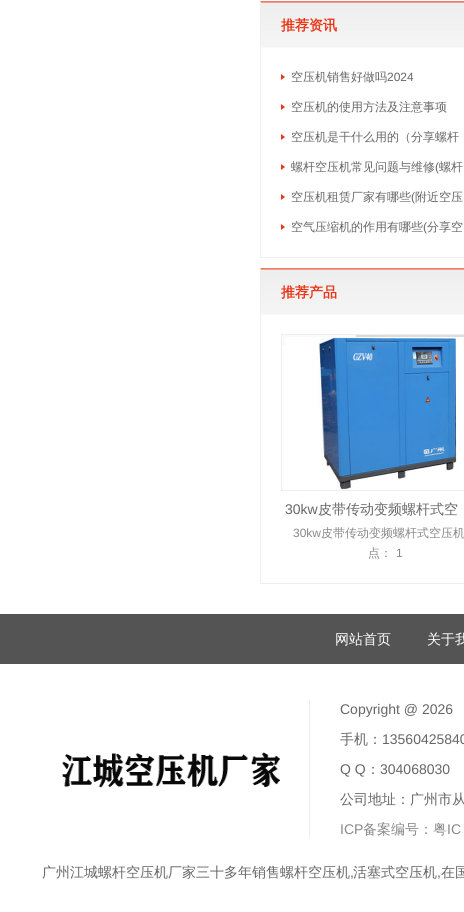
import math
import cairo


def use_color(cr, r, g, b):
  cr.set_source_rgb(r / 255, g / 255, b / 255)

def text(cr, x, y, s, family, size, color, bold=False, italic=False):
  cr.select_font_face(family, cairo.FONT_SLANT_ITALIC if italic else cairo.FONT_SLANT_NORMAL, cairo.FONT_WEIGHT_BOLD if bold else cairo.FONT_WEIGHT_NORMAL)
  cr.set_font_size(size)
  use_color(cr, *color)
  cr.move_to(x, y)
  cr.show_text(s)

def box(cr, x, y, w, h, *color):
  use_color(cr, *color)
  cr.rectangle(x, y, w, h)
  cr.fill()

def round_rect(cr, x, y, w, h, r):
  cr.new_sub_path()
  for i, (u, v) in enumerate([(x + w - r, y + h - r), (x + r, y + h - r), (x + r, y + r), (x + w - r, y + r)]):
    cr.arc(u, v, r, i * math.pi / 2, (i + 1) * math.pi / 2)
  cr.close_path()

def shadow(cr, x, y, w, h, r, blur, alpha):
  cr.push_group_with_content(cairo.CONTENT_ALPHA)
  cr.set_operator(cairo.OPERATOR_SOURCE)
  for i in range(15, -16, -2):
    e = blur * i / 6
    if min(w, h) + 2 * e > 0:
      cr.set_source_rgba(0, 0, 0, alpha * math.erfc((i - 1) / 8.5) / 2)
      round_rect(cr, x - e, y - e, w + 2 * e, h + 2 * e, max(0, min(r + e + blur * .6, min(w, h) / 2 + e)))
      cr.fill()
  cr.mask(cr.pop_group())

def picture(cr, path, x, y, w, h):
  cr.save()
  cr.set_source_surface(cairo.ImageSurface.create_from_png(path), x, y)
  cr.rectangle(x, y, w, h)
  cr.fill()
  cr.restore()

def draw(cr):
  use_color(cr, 255, 255, 255)
  cr.paint()
  use_color(cr, 240, 114, 92)
  cr.new_path()
  cr.move_to(260, 1)
  cr.line_to(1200, 1)
  cr.line_to(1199, 3)
  cr.line_to(261, 3)
  cr.close_path()
  cr.fill()
  box(cr, 260, 257, 204, 1, 239, 239, 239)
  cr.new_path()
  cr.move_to(260, 258)
  cr.line_to(260, 1)
  cr.line_to(261, 3)
  cr.line_to(261, 257)
  cr.close_path()
  cr.fill()
  use_color(cr, 238, 238, 238)
  shadow(cr, 261, 3, 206, 44, 0, 1, 1)
  gradient = cairo.LinearGradient(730, 47, 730, 3)
  gradient.add_color_stop_rgba(0, 0.961, 0.961, 0.961, 1)
  gradient.add_color_stop_rgba(1, 0.933, 0.933, 0.933, 1)
  cr.set_source(gradient)
  cr.rectangle(261, 3, 203, 43)
  cr.fill()
  use_color(cr, 234, 53, 22)
  cr.new_path()
  cr.move_to(281, 80)
  cr.line_to(281, 74)
  cr.line_to(285, 77)
  cr.close_path()
  cr.fill()
  cr.new_path()
  cr.move_to(281, 110)
  cr.line_to(281, 104)
  cr.line_to(285, 107)
  cr.close_path()
  cr.fill()
  cr.new_path()
  cr.move_to(281, 140)
  cr.line_to(281, 134)
  cr.line_to(285, 137)
  cr.close_path()
  cr.fill()
  cr.new_path()
  cr.move_to(281, 170)
  cr.line_to(281, 164)
  cr.line_to(285, 167)
  cr.close_path()
  cr.fill()
  cr.new_path()
  cr.move_to(281, 200)
  cr.line_to(281, 194)
  cr.line_to(285, 197)
  cr.close_path()
  cr.fill()
  cr.new_path()
  cr.move_to(281, 230)
  cr.line_to(281, 224)
  cr.line_to(285, 227)
  cr.close_path()
  cr.fill()
  use_color(cr, 240, 114, 92)
  cr.new_path()
  cr.move_to(260, 268)
  cr.line_to(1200, 268)
  cr.line_to(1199, 270)
  cr.line_to(261, 270)
  cr.close_path()
  cr.fill()
  box(cr, 260, 583, 204, 1, 239, 239, 239)
  cr.new_path()
  cr.move_to(260, 584)
  cr.line_to(260, 268)
  cr.line_to(261, 270)
  cr.line_to(261, 583)
  cr.close_path()
  cr.fill()
  use_color(cr, 238, 238, 238)
  shadow(cr, 261, 270, 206, 44, 0, 1, 1)
  gradient = cairo.LinearGradient(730, 314, 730, 270)
  gradient.add_color_stop_rgba(0, 0.961, 0.961, 0.961, 1)
  gradient.add_color_stop_rgba(1, 0.933, 0.933, 0.933, 1)
  cr.set_source(gradient)
  cr.rectangle(261, 270, 203, 43)
  cr.fill()
  cr.rectangle(281.5, 334.5, 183, 156)
  use_color(cr, 238, 238, 238)
  cr.set_line_width(1)
  cr.stroke()
  picture(cr, "img_01.png", 282, 335, 182, 155)
  box(cr, 0, 614, 464, 50, 84, 84, 84)
  picture(cr, "img_02.png", 62, 752, 218, 36)
  box(cr, 309, 700, 1, 138, 238, 238, 238)
  text(cr, 281, 30, "推荐资讯", "WenQuanYi Zen Hei", 14, (234, 53, 22), bold=True)
  text(cr, 291, 81, "空压机销售好做吗", "WenQuanYi Zen Hei Medium", 12, (102, 102, 102))
  text(cr, 387, 81, "2024", "Liberation Sans", 12, (102, 102, 102))
  text(cr, 291, 111, "空压机的使用方法及注意事项", "WenQuanYi Zen Hei Medium", 12, (102, 102, 102))
  text(cr, 291, 141, "空压机是干什么用的（分享螺杆", "WenQuanYi Zen Hei Medium", 12, (102, 102, 102))
  text(cr, 291, 171, "螺杆空压机常见问题与维修", "WenQuanYi Zen Hei Medium", 12, (102, 102, 102))
  text(cr, 435, 171, "(", "Liberation Sans", 12, (102, 102, 102))
  text(cr, 439, 171, "螺杆", "WenQuanYi Zen Hei Medium", 12, (102, 102, 102))
  text(cr, 291, 201, "空压机租赁厂家有哪些", "WenQuanYi Zen Hei Medium", 12, (102, 102, 102))
  text(cr, 411, 201, "(", "Liberation Sans", 12, (102, 102, 102))
  text(cr, 415, 201, "附近空压", "WenQuanYi Zen Hei Medium", 12, (102, 102, 102))
  text(cr, 291, 231, "空气压缩机的作用有哪些", "WenQuanYi Zen Hei Medium", 12, (102, 102, 102))
  text(cr, 423, 231, "(", "Liberation Sans", 12, (102, 102, 102))
  text(cr, 427, 231, "分享空", "WenQuanYi Zen Hei Medium", 12, (102, 102, 102))
  text(cr, 281, 297, "推荐产品", "WenQuanYi Zen Hei", 14, (234, 53, 22), bold=True)
  text(cr, 285, 514, "30kw", "Liberation Sans", 14, (102, 102, 102))
  text(cr, 318, 514, "皮带传动变频螺杆式空", "WenQuanYi Zen Hei Medium", 14, (102, 102, 102))
  text(cr, 293, 537, "30kw", "Liberation Sans", 12, (136, 136, 136))
  text(cr, 321, 537, "皮带传动变频螺杆式空压机", "WenQuanYi Zen Hei Medium", 12, (136, 136, 136))
  text(cr, 368, 557, "点：", "WenQuanYi Zen Hei Medium", 12, (136, 136, 136))
  text(cr, 396, 557, "1", "Liberation Sans", 12, (136, 136, 136))
  text(cr, 335, 644, "网站首页", "WenQuanYi Zen Hei Medium", 14, (255, 255, 255))
  text(cr, 427, 644, "关于我", "WenQuanYi Zen Hei Medium", 14, (255, 255, 255))
  text(cr, 340, 714, "Copyright @ 2026", "Liberation Sans", 14, (102, 102, 102))
  text(cr, 340, 744, "手机：", "WenQuanYi Zen Hei Medium", 14, (102, 102, 102))
  text(cr, 382, 744, "13560425840", "Liberation Sans", 14, (102, 102, 102))
  text(cr, 340, 774, "Q Q", "Liberation Sans", 14, (102, 102, 102))
  text(cr, 366, 774, "：", "WenQuanYi Zen Hei Medium", 14, (102, 102, 102))
  text(cr, 380, 774, "304068030", "Liberation Sans", 14, (102, 102, 102))
  text(cr, 340, 804, "公司地址：广州市从", "WenQuanYi Zen Hei Medium", 14, (102, 102, 102))
  text(cr, 340, 834, "ICP", "Liberation Sans", 14, (136, 136, 136))
  text(cr, 363, 834, "备案编号：粤", "WenQuanYi Zen Hei Medium", 14, (136, 136, 136))
  text(cr, 447, 834, "IC", "Liberation Sans", 14, (136, 136, 136))
  text(cr, 42, 877, "广州江城螺杆空压机厂家三十多年销售螺杆空压机", "WenQuanYi Zen Hei Medium", 14, (102, 102, 102))
  text(cr, 350, 877, ",", "Liberation Sans", 14, (102, 102, 102))
  text(cr, 353, 877, "活塞式空压机", "WenQuanYi Zen Hei Medium", 14, (102, 102, 102))
  text(cr, 437, 877, ",", "Liberation Sans", 14, (102, 102, 102))
  text(cr, 441, 877, "在国", "WenQuanYi Zen Hei Medium", 14, (102, 102, 102))


surface = cairo.ImageSurface(cairo.FORMAT_RGB24, 464, 912)
cr = cairo.Context(surface)
options = cairo.FontOptions()
options.set_hint_metrics(cairo.HINT_METRICS_OFF)
options.set_hint_style(cairo.HINT_STYLE_NONE)
cr.set_font_options(options)
cr.set_miter_limit(4)
draw(cr)
surface.write_to_png("out.png")
